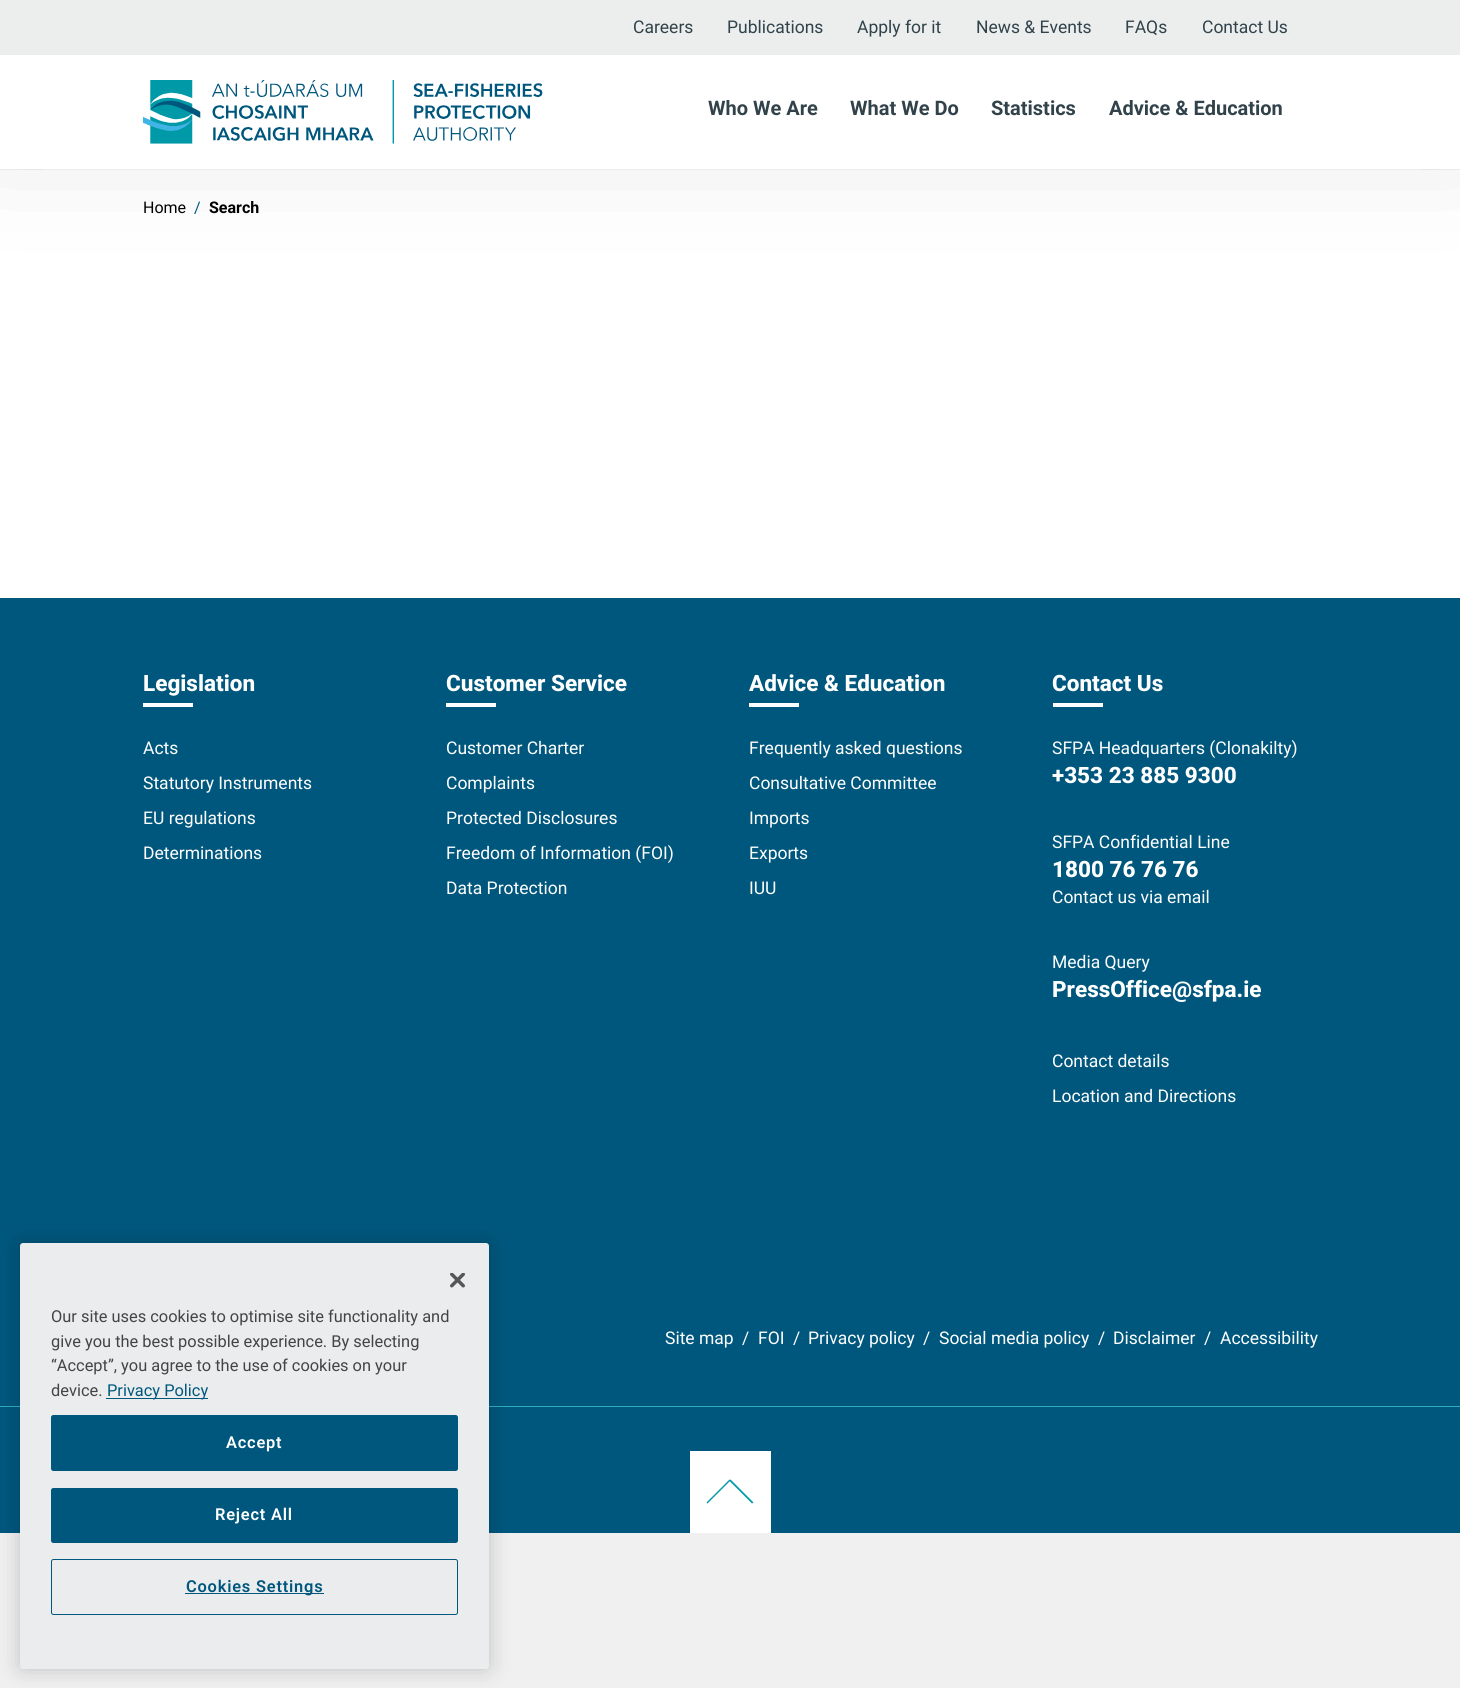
import math
import cairo


def use_color(cr, r, g, b):
  cr.set_source_rgb(r / 255, g / 255, b / 255)

def text(cr, x, y, s, family, size, color, bold=False, italic=False):
  cr.select_font_face(family, cairo.FONT_SLANT_ITALIC if italic else cairo.FONT_SLANT_NORMAL, cairo.FONT_WEIGHT_BOLD if bold else cairo.FONT_WEIGHT_NORMAL)
  cr.set_font_size(size)
  use_color(cr, *color)
  cr.move_to(x, y)
  cr.show_text(s)

def spaced_text(cr, x, y, s, letter, word):
  cr.move_to(x, y)
  for ch in s:
    cr.show_text(ch)
    cr.rel_move_to(letter + word * (ch == ' '), 0)

def box(cr, x, y, w, h, *color):
  use_color(cr, *color)
  cr.rectangle(x, y, w, h)
  cr.fill()

def round_rect(cr, x, y, w, h, r):
  cr.new_sub_path()
  for i, (u, v) in enumerate([(x + w - r, y + h - r), (x + r, y + h - r), (x + r, y + r), (x + w - r, y + r)]):
    cr.arc(u, v, r, i * math.pi / 2, (i + 1) * math.pi / 2)
  cr.close_path()

def shadow(cr, x, y, w, h, r, blur, alpha):
  cr.push_group_with_content(cairo.CONTENT_ALPHA)
  cr.set_operator(cairo.OPERATOR_SOURCE)
  for i in range(15, -16, -2):
    e = blur * i / 6
    if min(w, h) + 2 * e > 0:
      cr.set_source_rgba(0, 0, 0, alpha * math.erfc((i - 1) / 8.5) / 2)
      round_rect(cr, x - e, y - e, w + 2 * e, h + 2 * e, max(0, min(r + e + blur * .6, min(w, h) / 2 + e)))
      cr.fill()
  cr.mask(cr.pop_group())

def picture(cr, path, x, y, w, h):
  cr.save()
  cr.set_source_surface(cairo.ImageSurface.create_from_png(path), x, y)
  cr.rectangle(x, y, w, h)
  cr.fill()
  cr.restore()

def draw(cr):
  use_color(cr, 240, 240, 240)
  cr.paint()
  box(cr, 0, 170, 1460, 428, 255, 255, 255)
  use_color(cr, 202, 202, 202)
  shadow(cr, 1, 63, 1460, 55, 0, 62.5, 1)
  box(cr, 0, 0, 1460, 55, 235, 238, 237)
  box(cr, 0, 55, 1460, 114, 255, 255, 255)
  box(cr, 43, 169, 1376, 1, 235, 238, 237)
  picture(cr, "img_01.png", 143, 80, 400, 64)
  box(cr, 0, 598, 1460, 935, 0, 87, 125)
  box(cr, 143, 703, 50, 4, 255, 255, 255)
  box(cr, 446, 703, 50, 4, 255, 255, 255)
  box(cr, 749, 703, 50, 4, 255, 255, 255)
  box(cr, 1053, 703, 50, 4, 255, 255, 255)
  box(cr, 0, 1406, 1460, 1, 49, 172, 185)
  box(cr, 690, 1451, 81, 82, 255, 255, 255)
  use_color(cr, 0, 153, 168)
  cr.new_path()
  cr.move_to(729, 1480.5)
  cr.line_to(730.5, 1479.5)
  cr.line_to(753.5, 1502.5)
  cr.line_to(752, 1503.5)
  cr.close_path()
  cr.fill()
  cr.new_path()
  cr.move_to(706.5, 1502.5)
  cr.line_to(729.5, 1479.5)
  cr.line_to(730.5, 1480.5)
  cr.line_to(707.5, 1503.5)
  cr.close_path()
  cr.fill()
  use_color(cr, 0, 0, 0)
  shadow(cr, 20, 1243, 469, 426, 3, 11, 0.2)
  use_color(cr, 234, 236, 237)
  round_rect(cr, 20, 1243, 469, 426, 3)
  cr.fill()
  picture(cr, "img_02.png", 450, 1273, 15, 15)
  box(cr, 106, 1398, 102, 1, 0, 87, 125)
  round_rect(cr, 51.5, 1415.5, 406, 55, 2)
  cr.fill_preserve()
  cr.set_line_width(1)
  cr.stroke()
  round_rect(cr, 51.5, 1488.5, 406, 54, 2)
  cr.fill_preserve()
  cr.stroke()
  round_rect(cr, 51.5, 1559.5, 406, 55, 2)
  cr.stroke()
  box(cr, 185, 1593, 139, 1, 0, 87, 125)
  text(cr, 633, 33, "Careers", "Roboto", 17.5, (49, 66, 75))
  text(cr, 727, 33, "Publications", "Roboto", 17.5, (49, 66, 75))
  text(cr, 857, 33, "Apply for it", "Roboto", 17.5, (49, 66, 75))
  text(cr, 976, 33, "News & Events", "Roboto", 17.5, (49, 66, 75))
  text(cr, 1125, 33, "FAQs", "Roboto", 17.5, (49, 66, 75))
  text(cr, 1202, 33, "Contact Us", "Roboto", 17.5, (49, 66, 75))
  text(cr, 708, 115, "Who We Are", "Roboto", 20, (49, 66, 75), bold=True)
  text(cr, 850, 115, "What We Do", "Roboto", 20, (49, 66, 75), bold=True)
  text(cr, 991, 115, "Statistics", "Roboto", 20, (49, 66, 75), bold=True)
  text(cr, 1109, 115, "Advice & Education", "Roboto", 20, (49, 66, 75), bold=True)
  text(cr, 143, 213, "Home", "Roboto", 16, (0, 0, 0))
  text(cr, 194, 213, "/", "Roboto", 16, (0, 87, 125))
  text(cr, 209, 213, "Search", "Roboto", 16, (0, 0, 0), bold=True)
  text(cr, 143, 691, "Legislation", "Roboto ExtraBold", 22.5, (255, 255, 255))
  text(cr, 143, 754, "Acts", "Roboto", 17.5, (255, 255, 255))
  text(cr, 143, 789, "Statutory Instruments", "Roboto", 17.5, (255, 255, 255))
  text(cr, 143, 824, "EU regulations", "Roboto", 17.5, (255, 255, 255))
  text(cr, 143, 859, "Determinations", "Roboto", 17.5, (255, 255, 255))
  text(cr, 446, 691, "Customer Service", "Roboto ExtraBold", 22.5, (255, 255, 255))
  text(cr, 446, 754, "Customer Charter", "Roboto", 17.5, (255, 255, 255))
  text(cr, 446, 789, "Complaints", "Roboto", 17.5, (255, 255, 255))
  text(cr, 446, 824, "Protected Disclosures", "Roboto", 17.5, (255, 255, 255))
  text(cr, 446, 859, "Freedom of Information (FOI)", "Roboto", 17.5, (255, 255, 255))
  text(cr, 446, 894, "Data Protection", "Roboto", 17.5, (255, 255, 255))
  text(cr, 749, 691, "Advice & Education", "Roboto ExtraBold", 22.5, (255, 255, 255))
  text(cr, 749, 754, "Frequently asked questions", "Roboto", 17.5, (255, 255, 255))
  text(cr, 749, 789, "Consultative Committee", "Roboto", 17.5, (255, 255, 255))
  text(cr, 749, 824, "Imports", "Roboto", 17.5, (255, 255, 255))
  text(cr, 749, 859, "Exports", "Roboto", 17.5, (255, 255, 255))
  text(cr, 749, 894, "IUU", "Roboto", 17.5, (255, 255, 255))
  text(cr, 1052, 691, "Contact Us", "Roboto ExtraBold", 22.5, (255, 255, 255))
  text(cr, 1052, 754, "SFPA Headquarters (Clonakilty)", "Roboto", 17.5, (255, 255, 255))
  text(cr, 1052, 783, "+353 23 885 9300", "Roboto ExtraBold", 22.5, (255, 255, 255))
  text(cr, 1052, 848, "SFPA Confidential Line", "Roboto", 17.5, (255, 255, 255))
  text(cr, 1052, 877, "1800 76 76 76", "Roboto ExtraBold", 22.5, (255, 255, 255))
  text(cr, 1052, 903, "Contact us via email", "Roboto", 17.5, (255, 255, 255))
  text(cr, 1052, 968, "Media Query", "Roboto", 17.5, (255, 255, 255))
  text(cr, 1052, 997, "PressOffice@sfpa.ie", "Roboto ExtraBold", 22.5, (255, 255, 255))
  text(cr, 1052, 1067, "Contact details", "Roboto", 17.5, (255, 255, 255))
  text(cr, 1052, 1102, "Location and Directions", "Roboto", 17.5, (255, 255, 255))
  text(cr, 665, 1344, "Site map", "Roboto", 17.5, (255, 255, 255))
  text(cr, 742, 1344, "/", "Roboto", 17.5, (255, 255, 255))
  text(cr, 758, 1344, "FOI", "Roboto", 17.5, (255, 255, 255))
  text(cr, 793, 1344, "/", "Roboto", 17.5, (255, 255, 255))
  text(cr, 808, 1344, "Privacy policy", "Roboto", 17.5, (255, 255, 255))
  text(cr, 923, 1344, "/", "Roboto", 17.5, (255, 255, 255))
  text(cr, 939, 1344, "Social media policy", "Roboto", 17.5, (255, 255, 255))
  text(cr, 1098, 1344, "/", "Roboto", 17.5, (255, 255, 255))
  text(cr, 1113, 1344, "Disclaimer", "Roboto", 17.5, (255, 255, 255))
  text(cr, 1204, 1344, "/", "Roboto", 17.5, (255, 255, 255))
  text(cr, 1220, 1344, "Accessibility", "Roboto", 17.5, (255, 255, 255))
  text(cr, 51, 1322, "Our site uses cookies to optimise site functionality and", "Roboto", 16.4, (68, 68, 68))
  text(cr, 51, 1347, "give you the best possible experience. By selecting", "Roboto", 16.4, (68, 68, 68))
  text(cr, 51, 1371, "“Accept”, you agree to the use of cookies on your", "Roboto", 16.4, (68, 68, 68))
  text(cr, 51, 1396, "device.", "Roboto", 16.4, (68, 68, 68))
  text(cr, 107, 1396, "Privacy Policy", "Roboto", 16.4, (0, 87, 125))
  cr.select_font_face("Roboto SemiBold")
  use_color(cr, 255, 255, 255)
  spaced_text(cr, 226, 1448, "Accept", 0.8, 0)
  spaced_text(cr, 215, 1520, "Reject All", 0.8, 0)
  use_color(cr, 0, 87, 125)
  spaced_text(cr, 186, 1592, "Cookies Settings", 0.8, 0)


surface = cairo.ImageSurface(cairo.FORMAT_RGB24, 1460, 1688)
cr = cairo.Context(surface)
options = cairo.FontOptions()
options.set_hint_metrics(cairo.HINT_METRICS_OFF)
options.set_hint_style(cairo.HINT_STYLE_NONE)
cr.set_font_options(options)
cr.set_miter_limit(4)
draw(cr)
surface.write_to_png("out.png")
